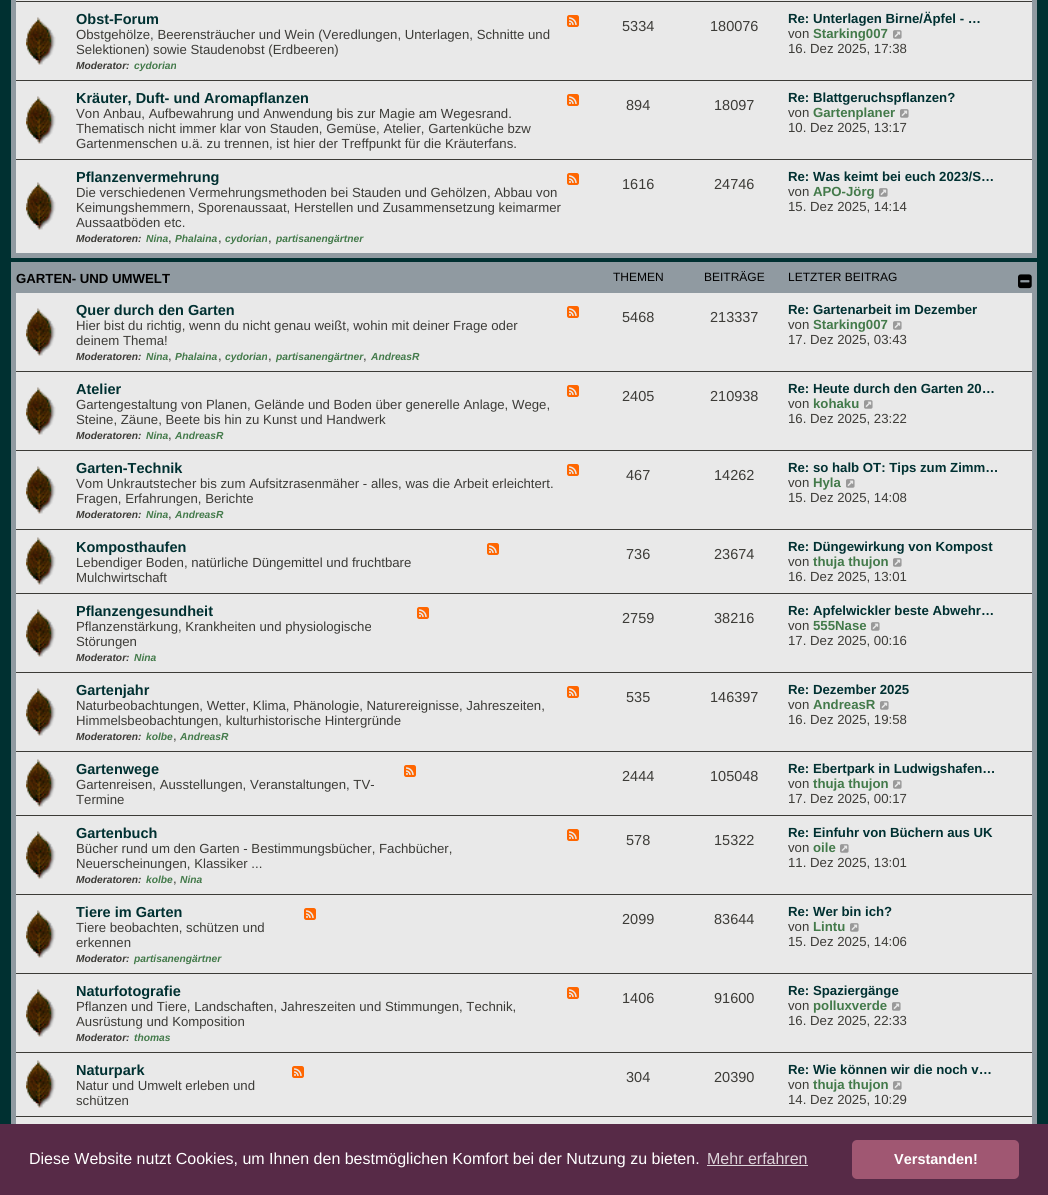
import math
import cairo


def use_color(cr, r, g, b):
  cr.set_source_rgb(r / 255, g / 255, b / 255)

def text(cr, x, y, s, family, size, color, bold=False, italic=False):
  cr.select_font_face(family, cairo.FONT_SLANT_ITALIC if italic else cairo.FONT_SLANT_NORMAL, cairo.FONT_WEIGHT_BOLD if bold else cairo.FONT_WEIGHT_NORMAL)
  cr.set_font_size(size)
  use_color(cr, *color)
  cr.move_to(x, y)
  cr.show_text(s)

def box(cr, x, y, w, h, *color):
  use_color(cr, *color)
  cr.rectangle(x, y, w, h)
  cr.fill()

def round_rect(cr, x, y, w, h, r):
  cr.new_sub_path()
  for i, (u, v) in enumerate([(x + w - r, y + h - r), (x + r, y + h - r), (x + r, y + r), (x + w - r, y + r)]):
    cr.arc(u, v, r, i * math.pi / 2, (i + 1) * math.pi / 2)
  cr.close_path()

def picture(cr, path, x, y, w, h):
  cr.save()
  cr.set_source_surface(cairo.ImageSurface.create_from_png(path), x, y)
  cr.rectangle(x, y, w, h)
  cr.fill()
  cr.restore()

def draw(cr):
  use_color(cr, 0, 48, 49)
  cr.paint()
  box(cr, 11, 0, 1026, 258, 144, 154, 161)
  box(cr, 16, 0, 1016, 253, 233, 233, 233)
  box(cr, 16, 1, 1016, 1, 60, 59, 55)
  box(cr, 16, 80, 1016, 1, 60, 59, 55)
  picture(cr, "img_01.png", 26, 17, 30, 48)
  picture(cr, "img_02.png", 567, 15, 12, 12)
  picture(cr, "img_03.png", 893, 30, 9, 9)
  box(cr, 16, 159, 1016, 1, 60, 59, 55)
  picture(cr, "img_01.png", 26, 96, 30, 48)
  picture(cr, "img_02.png", 567, 94, 12, 12)
  picture(cr, "img_03.png", 900, 109, 9, 9)
  picture(cr, "img_01.png", 26, 182, 30, 48)
  picture(cr, "img_02.png", 567, 173, 12, 12)
  picture(cr, "img_03.png", 879, 188, 9, 9)
  box(cr, 11, 262, 1026, 862, 144, 154, 161)
  picture(cr, "img_04.png", 1018, 274, 14, 15)
  box(cr, 16, 293, 1016, 831, 233, 233, 233)
  box(cr, 16, 371, 1016, 1, 60, 59, 55)
  picture(cr, "img_01.png", 26, 308, 30, 48)
  picture(cr, "img_02.png", 567, 306, 12, 12)
  picture(cr, "img_03.png", 893, 321, 9, 9)
  box(cr, 16, 450, 1016, 1, 60, 59, 55)
  picture(cr, "img_01.png", 26, 387, 30, 48)
  picture(cr, "img_02.png", 567, 385, 12, 12)
  picture(cr, "img_03.png", 864, 400, 9, 9)
  box(cr, 16, 529, 1016, 1, 60, 59, 55)
  picture(cr, "img_01.png", 26, 466, 30, 48)
  picture(cr, "img_02.png", 567, 464, 12, 12)
  picture(cr, "img_03.png", 846, 479, 9, 9)
  box(cr, 16, 593, 1016, 1, 60, 59, 55)
  picture(cr, "img_01.png", 26, 537, 30, 48)
  picture(cr, "img_02.png", 487, 543, 12, 12)
  picture(cr, "img_03.png", 893, 558, 9, 9)
  box(cr, 16, 672, 1016, 1, 60, 59, 55)
  picture(cr, "img_01.png", 26, 609, 30, 48)
  picture(cr, "img_02.png", 417, 607, 12, 12)
  picture(cr, "img_03.png", 871, 622, 9, 9)
  box(cr, 16, 751, 1016, 1, 60, 59, 55)
  picture(cr, "img_01.png", 26, 688, 30, 48)
  picture(cr, "img_02.png", 567, 686, 12, 12)
  picture(cr, "img_03.png", 880, 701, 9, 9)
  box(cr, 16, 815, 1016, 1, 60, 59, 55)
  picture(cr, "img_01.png", 26, 759, 30, 48)
  picture(cr, "img_02.png", 404, 765, 12, 12)
  picture(cr, "img_03.png", 893, 780, 9, 9)
  box(cr, 16, 894, 1016, 1, 60, 59, 55)
  picture(cr, "img_01.png", 26, 831, 30, 48)
  picture(cr, "img_02.png", 567, 829, 12, 12)
  picture(cr, "img_03.png", 840, 844, 9, 9)
  box(cr, 16, 973, 1016, 1, 60, 59, 55)
  picture(cr, "img_01.png", 26, 910, 30, 48)
  picture(cr, "img_02.png", 304, 908, 12, 12)
  picture(cr, "img_03.png", 850, 923, 9, 9)
  box(cr, 16, 1052, 1016, 1, 60, 59, 55)
  picture(cr, "img_01.png", 26, 989, 30, 48)
  picture(cr, "img_02.png", 567, 987, 12, 12)
  picture(cr, "img_03.png", 892, 1002, 9, 9)
  box(cr, 16, 1116, 1016, 1, 60, 59, 55)
  picture(cr, "img_01.png", 26, 1060, 30, 48)
  picture(cr, "img_02.png", 292, 1066, 12, 12)
  picture(cr, "img_03.png", 893, 1081, 9, 9)
  box(cr, 0, 1124, 1048, 71, 87, 42, 71)
  box(cr, 707, 1165, 101, 1, 221, 212, 218)
  use_color(cr, 160, 87, 114)
  round_rect(cr, 852, 1140, 167, 39, 5)
  cr.fill()
  text(cr, 76, 24, "Obst-Forum", "Liberation Sans", 14.5, (0, 48, 49), bold=True)
  text(cr, 76, 39, "Obstgehölze, Beerensträucher und Wein (Veredlungen, Unterlagen, Schnitte und", "Liberation Sans", 13.2, (60, 59, 55))
  text(cr, 76, 54, "Selektionen) sowie Staudenobst (Erdbeeren)", "Liberation Sans", 13.2, (60, 59, 55))
  text(cr, 76, 69, "Moderator:", "Liberation Sans", 10.25, (60, 59, 55), bold=True, italic=True)
  text(cr, 134, 69, "cydorian", "Liberation Sans", 10.25, (67, 122, 74), bold=True, italic=True)
  text(cr, 622, 31, "5334", "Liberation Sans", 14.5, (60, 59, 55))
  text(cr, 710, 31, "180076", "Liberation Sans", 14.5, (60, 59, 55))
  text(cr, 788, 23, "Re: Unterlagen Birne/Äpfel - …", "Liberation Sans", 13.2, (0, 48, 49), bold=True)
  text(cr, 788, 38, "von", "Liberation Sans", 13.2, (60, 59, 55))
  text(cr, 813, 38, "Starking007", "Liberation Sans", 13.2, (67, 122, 74), bold=True)
  text(cr, 788, 53, "16. Dez 2025, 17:38", "Liberation Sans", 13.2, (60, 59, 55))
  text(cr, 76, 103, "Kräuter, Duft- und Aromapflanzen", "Liberation Sans", 14.5, (0, 48, 49), bold=True)
  text(cr, 76, 118, "Von Anbau, Aufbewahrung und Anwendung bis zur Magie am Wegesrand.", "Liberation Sans", 13.2, (60, 59, 55))
  text(cr, 76, 133, "Thematisch nicht immer klar von Stauden, Gemüse, Atelier, Gartenküche bzw", "Liberation Sans", 13.2, (60, 59, 55))
  text(cr, 76, 148, "Gartenmenschen u.ä. zu trennen, ist hier der Treffpunkt für die Kräuterfans.", "Liberation Sans", 13.2, (60, 59, 55))
  text(cr, 626, 110, "894", "Liberation Sans", 14.5, (60, 59, 55))
  text(cr, 714, 110, "18097", "Liberation Sans", 14.5, (60, 59, 55))
  text(cr, 788, 102, "Re: Blattgeruchspflanzen?", "Liberation Sans", 13.2, (0, 48, 49), bold=True)
  text(cr, 788, 117, "von", "Liberation Sans", 13.2, (60, 59, 55))
  text(cr, 813, 117, "Gartenplaner", "Liberation Sans", 13.2, (67, 122, 74), bold=True)
  text(cr, 788, 132, "10. Dez 2025, 13:17", "Liberation Sans", 13.2, (60, 59, 55))
  text(cr, 76, 182, "Pflanzenvermehrung", "Liberation Sans", 14.5, (0, 48, 49), bold=True)
  text(cr, 76, 197, "Die verschiedenen Vermehrungsmethoden bei Stauden und Gehölzen, Abbau von", "Liberation Sans", 13.2, (60, 59, 55))
  text(cr, 76, 212, "Keimungshemmern, Sporenaussaat, Herstellen und Zusammensetzung keimarmer", "Liberation Sans", 13.2, (60, 59, 55))
  text(cr, 76, 227, "Aussaatböden etc.", "Liberation Sans", 13.2, (60, 59, 55))
  text(cr, 76, 242, "Moderatoren:", "Liberation Sans", 10.25, (60, 59, 55), bold=True, italic=True)
  text(cr, 146, 242, "Nina", "Liberation Sans", 10.25, (67, 122, 74), bold=True, italic=True)
  text(cr, 168, 242, ",", "Liberation Sans", 13.2, (60, 59, 55))
  text(cr, 175, 242, "Phalaina", "Liberation Sans", 10.25, (67, 122, 74), bold=True, italic=True)
  text(cr, 218, 242, ",", "Liberation Sans", 13.2, (60, 59, 55))
  text(cr, 225, 242, "cydorian", "Liberation Sans", 10.25, (67, 122, 74), bold=True, italic=True)
  text(cr, 268, 242, ",", "Liberation Sans", 13.2, (60, 59, 55))
  text(cr, 276, 242, "partisanengärtner", "Liberation Sans", 10.25, (67, 122, 74), bold=True, italic=True)
  text(cr, 622, 189, "1616", "Liberation Sans", 14.5, (60, 59, 55))
  text(cr, 714, 189, "24746", "Liberation Sans", 14.5, (60, 59, 55))
  text(cr, 788, 181, "Re: Was keimt bei euch 2023/S…", "Liberation Sans", 13.2, (0, 48, 49), bold=True)
  text(cr, 788, 196, "von", "Liberation Sans", 13.2, (60, 59, 55))
  text(cr, 813, 196, "APO-Jörg", "Liberation Sans", 13.2, (67, 122, 74), bold=True)
  text(cr, 788, 211, "15. Dez 2025, 14:14", "Liberation Sans", 13.2, (60, 59, 55))
  text(cr, 16, 283, "GARTEN- UND UMWELT", "Liberation Sans", 13.2, (0, 0, 0), bold=True)
  text(cr, 613, 281, "THEMEN", "Liberation Sans", 12, (0, 0, 0))
  text(cr, 704, 281, "BEITRÄGE", "Liberation Sans", 12, (0, 0, 0))
  text(cr, 788, 281, "LETZTER BEITRAG", "Liberation Sans", 12, (0, 0, 0))
  text(cr, 76, 315, "Quer durch den Garten", "Liberation Sans", 14.5, (0, 48, 49), bold=True)
  text(cr, 76, 330, "Hier bist du richtig, wenn du nicht genau weißt, wohin mit deiner Frage oder", "Liberation Sans", 13.2, (60, 59, 55))
  text(cr, 76, 345, "deinem Thema!", "Liberation Sans", 13.2, (60, 59, 55))
  text(cr, 76, 360, "Moderatoren:", "Liberation Sans", 10.25, (60, 59, 55), bold=True, italic=True)
  text(cr, 146, 360, "Nina", "Liberation Sans", 10.25, (67, 122, 74), bold=True, italic=True)
  text(cr, 168, 360, ",", "Liberation Sans", 13.2, (60, 59, 55))
  text(cr, 175, 360, "Phalaina", "Liberation Sans", 10.25, (67, 122, 74), bold=True, italic=True)
  text(cr, 218, 360, ",", "Liberation Sans", 13.2, (60, 59, 55))
  text(cr, 225, 360, "cydorian", "Liberation Sans", 10.25, (67, 122, 74), bold=True, italic=True)
  text(cr, 268, 360, ",", "Liberation Sans", 13.2, (60, 59, 55))
  text(cr, 276, 360, "partisanengärtner", "Liberation Sans", 10.25, (67, 122, 74), bold=True, italic=True)
  text(cr, 363, 360, ",", "Liberation Sans", 13.2, (60, 59, 55))
  text(cr, 371, 360, "AndreasR", "Liberation Sans", 10.25, (67, 122, 74), bold=True, italic=True)
  text(cr, 622, 322, "5468", "Liberation Sans", 14.5, (60, 59, 55))
  text(cr, 710, 322, "213337", "Liberation Sans", 14.5, (60, 59, 55))
  text(cr, 788, 314, "Re: Gartenarbeit im Dezember", "Liberation Sans", 13.2, (0, 48, 49), bold=True)
  text(cr, 788, 329, "von", "Liberation Sans", 13.2, (60, 59, 55))
  text(cr, 813, 329, "Starking007", "Liberation Sans", 13.2, (67, 122, 74), bold=True)
  text(cr, 788, 344, "17. Dez 2025, 03:43", "Liberation Sans", 13.2, (60, 59, 55))
  text(cr, 76, 394, "Atelier", "Liberation Sans", 14.5, (0, 48, 49), bold=True)
  text(cr, 76, 409, "Gartengestaltung von Planen, Gelände und Boden über generelle Anlage, Wege,", "Liberation Sans", 13.2, (60, 59, 55))
  text(cr, 76, 424, "Steine, Zäune, Beete bis hin zu Kunst und Handwerk", "Liberation Sans", 13.2, (60, 59, 55))
  text(cr, 76, 439, "Moderatoren:", "Liberation Sans", 10.25, (60, 59, 55), bold=True, italic=True)
  text(cr, 146, 439, "Nina", "Liberation Sans", 10.25, (67, 122, 74), bold=True, italic=True)
  text(cr, 168, 439, ",", "Liberation Sans", 13.2, (60, 59, 55))
  text(cr, 175, 439, "AndreasR", "Liberation Sans", 10.25, (67, 122, 74), bold=True, italic=True)
  text(cr, 622, 401, "2405", "Liberation Sans", 14.5, (60, 59, 55))
  text(cr, 710, 401, "210938", "Liberation Sans", 14.5, (60, 59, 55))
  text(cr, 788, 393, "Re: Heute durch den Garten 20…", "Liberation Sans", 13.2, (0, 48, 49), bold=True)
  text(cr, 788, 408, "von", "Liberation Sans", 13.2, (60, 59, 55))
  text(cr, 813, 408, "kohaku", "Liberation Sans", 13.2, (67, 122, 74), bold=True)
  text(cr, 788, 423, "16. Dez 2025, 23:22", "Liberation Sans", 13.2, (60, 59, 55))
  text(cr, 76, 473, "Garten-Technik", "Liberation Sans", 14.5, (0, 48, 49), bold=True)
  text(cr, 76, 488, "Vom Unkrautstecher bis zum Aufsitzrasenmäher - alles, was die Arbeit erleichtert.", "Liberation Sans", 13.2, (60, 59, 55))
  text(cr, 76, 503, "Fragen, Erfahrungen, Berichte", "Liberation Sans", 13.2, (60, 59, 55))
  text(cr, 76, 518, "Moderatoren:", "Liberation Sans", 10.25, (60, 59, 55), bold=True, italic=True)
  text(cr, 146, 518, "Nina", "Liberation Sans", 10.25, (67, 122, 74), bold=True, italic=True)
  text(cr, 168, 518, ",", "Liberation Sans", 13.2, (60, 59, 55))
  text(cr, 175, 518, "AndreasR", "Liberation Sans", 10.25, (67, 122, 74), bold=True, italic=True)
  text(cr, 626, 480, "467", "Liberation Sans", 14.5, (60, 59, 55))
  text(cr, 714, 480, "14262", "Liberation Sans", 14.5, (60, 59, 55))
  text(cr, 788, 472, "Re: so halb OT: Tips zum Zimm…", "Liberation Sans", 13.2, (0, 48, 49), bold=True)
  text(cr, 788, 487, "von", "Liberation Sans", 13.2, (60, 59, 55))
  text(cr, 813, 487, "Hyla", "Liberation Sans", 13.2, (67, 122, 74), bold=True)
  text(cr, 788, 502, "15. Dez 2025, 14:08", "Liberation Sans", 13.2, (60, 59, 55))
  text(cr, 76, 552, "Komposthaufen", "Liberation Sans", 14.5, (0, 48, 49), bold=True)
  text(cr, 76, 567, "Lebendiger Boden, natürliche Düngemittel und fruchtbare", "Liberation Sans", 13.2, (60, 59, 55))
  text(cr, 76, 582, "Mulchwirtschaft", "Liberation Sans", 13.2, (60, 59, 55))
  text(cr, 626, 559, "736", "Liberation Sans", 14.5, (60, 59, 55))
  text(cr, 714, 559, "23674", "Liberation Sans", 14.5, (60, 59, 55))
  text(cr, 788, 551, "Re: Düngewirkung von Kompost", "Liberation Sans", 13.2, (0, 48, 49), bold=True)
  text(cr, 788, 566, "von", "Liberation Sans", 13.2, (60, 59, 55))
  text(cr, 813, 566, "thuja thujon", "Liberation Sans", 13.2, (67, 122, 74), bold=True)
  text(cr, 788, 581, "16. Dez 2025, 13:01", "Liberation Sans", 13.2, (60, 59, 55))
  text(cr, 76, 616, "Pflanzengesundheit", "Liberation Sans", 14.5, (0, 48, 49), bold=True)
  text(cr, 76, 631, "Pflanzenstärkung, Krankheiten und physiologische", "Liberation Sans", 13.2, (60, 59, 55))
  text(cr, 76, 646, "Störungen", "Liberation Sans", 13.2, (60, 59, 55))
  text(cr, 76, 661, "Moderator:", "Liberation Sans", 10.25, (60, 59, 55), bold=True, italic=True)
  text(cr, 134, 661, "Nina", "Liberation Sans", 10.25, (67, 122, 74), bold=True, italic=True)
  text(cr, 622, 623, "2759", "Liberation Sans", 14.5, (60, 59, 55))
  text(cr, 714, 623, "38216", "Liberation Sans", 14.5, (60, 59, 55))
  text(cr, 788, 615, "Re: Apfelwickler beste Abwehr…", "Liberation Sans", 13.2, (0, 48, 49), bold=True)
  text(cr, 788, 630, "von", "Liberation Sans", 13.2, (60, 59, 55))
  text(cr, 813, 630, "555Nase", "Liberation Sans", 13.2, (67, 122, 74), bold=True)
  text(cr, 788, 645, "17. Dez 2025, 00:16", "Liberation Sans", 13.2, (60, 59, 55))
  text(cr, 76, 695, "Gartenjahr", "Liberation Sans", 14.5, (0, 48, 49), bold=True)
  text(cr, 76, 710, "Naturbeobachtungen, Wetter, Klima, Phänologie, Naturereignisse, Jahreszeiten,", "Liberation Sans", 13.2, (60, 59, 55))
  text(cr, 76, 725, "Himmelsbeobachtungen, kulturhistorische Hintergründe", "Liberation Sans", 13.2, (60, 59, 55))
  text(cr, 76, 740, "Moderatoren:", "Liberation Sans", 10.25, (60, 59, 55), bold=True, italic=True)
  text(cr, 146, 740, "kolbe", "Liberation Sans", 10.25, (67, 122, 74), bold=True, italic=True)
  text(cr, 173, 740, ",", "Liberation Sans", 13.2, (60, 59, 55))
  text(cr, 180, 740, "AndreasR", "Liberation Sans", 10.25, (67, 122, 74), bold=True, italic=True)
  text(cr, 626, 702, "535", "Liberation Sans", 14.5, (60, 59, 55))
  text(cr, 710, 702, "146397", "Liberation Sans", 14.5, (60, 59, 55))
  text(cr, 788, 694, "Re: Dezember 2025", "Liberation Sans", 13.2, (0, 48, 49), bold=True)
  text(cr, 788, 709, "von", "Liberation Sans", 13.2, (60, 59, 55))
  text(cr, 813, 709, "AndreasR", "Liberation Sans", 13.2, (67, 122, 74), bold=True)
  text(cr, 788, 724, "16. Dez 2025, 19:58", "Liberation Sans", 13.2, (60, 59, 55))
  text(cr, 76, 774, "Gartenwege", "Liberation Sans", 14.5, (0, 48, 49), bold=True)
  text(cr, 76, 789, "Gartenreisen, Ausstellungen, Veranstaltungen, TV-", "Liberation Sans", 13.2, (60, 59, 55))
  text(cr, 76, 804, "Termine", "Liberation Sans", 13.2, (60, 59, 55))
  text(cr, 622, 781, "2444", "Liberation Sans", 14.5, (60, 59, 55))
  text(cr, 710, 781, "105048", "Liberation Sans", 14.5, (60, 59, 55))
  text(cr, 788, 773, "Re: Ebertpark in Ludwigshafen…", "Liberation Sans", 13.2, (0, 48, 49), bold=True)
  text(cr, 788, 788, "von", "Liberation Sans", 13.2, (60, 59, 55))
  text(cr, 813, 788, "thuja thujon", "Liberation Sans", 13.2, (67, 122, 74), bold=True)
  text(cr, 788, 803, "17. Dez 2025, 00:17", "Liberation Sans", 13.2, (60, 59, 55))
  text(cr, 76, 838, "Gartenbuch", "Liberation Sans", 14.5, (0, 48, 49), bold=True)
  text(cr, 76, 853, "Bücher rund um den Garten - Bestimmungsbücher, Fachbücher,", "Liberation Sans", 13.2, (60, 59, 55))
  text(cr, 76, 868, "Neuerscheinungen, Klassiker ...", "Liberation Sans", 13.2, (60, 59, 55))
  text(cr, 76, 883, "Moderatoren:", "Liberation Sans", 10.25, (60, 59, 55), bold=True, italic=True)
  text(cr, 146, 883, "kolbe", "Liberation Sans", 10.25, (67, 122, 74), bold=True, italic=True)
  text(cr, 173, 883, ",", "Liberation Sans", 13.2, (60, 59, 55))
  text(cr, 180, 883, "Nina", "Liberation Sans", 10.25, (67, 122, 74), bold=True, italic=True)
  text(cr, 626, 845, "578", "Liberation Sans", 14.5, (60, 59, 55))
  text(cr, 714, 845, "15322", "Liberation Sans", 14.5, (60, 59, 55))
  text(cr, 788, 837, "Re: Einfuhr von Büchern aus UK", "Liberation Sans", 13.2, (0, 48, 49), bold=True)
  text(cr, 788, 852, "von", "Liberation Sans", 13.2, (60, 59, 55))
  text(cr, 813, 852, "oile", "Liberation Sans", 13.2, (67, 122, 74), bold=True)
  text(cr, 788, 867, "11. Dez 2025, 13:01", "Liberation Sans", 13.2, (60, 59, 55))
  text(cr, 76, 917, "Tiere im Garten", "Liberation Sans", 14.5, (0, 48, 49), bold=True)
  text(cr, 76, 932, "Tiere beobachten, schützen und", "Liberation Sans", 13.2, (60, 59, 55))
  text(cr, 76, 947, "erkennen", "Liberation Sans", 13.2, (60, 59, 55))
  text(cr, 76, 962, "Moderator:", "Liberation Sans", 10.25, (60, 59, 55), bold=True, italic=True)
  text(cr, 134, 962, "partisanengärtner", "Liberation Sans", 10.25, (67, 122, 74), bold=True, italic=True)
  text(cr, 622, 924, "2099", "Liberation Sans", 14.5, (60, 59, 55))
  text(cr, 714, 924, "83644", "Liberation Sans", 14.5, (60, 59, 55))
  text(cr, 788, 916, "Re: Wer bin ich?", "Liberation Sans", 13.2, (0, 48, 49), bold=True)
  text(cr, 788, 931, "von", "Liberation Sans", 13.2, (60, 59, 55))
  text(cr, 813, 931, "Lintu", "Liberation Sans", 13.2, (67, 122, 74), bold=True)
  text(cr, 788, 946, "15. Dez 2025, 14:06", "Liberation Sans", 13.2, (60, 59, 55))
  text(cr, 76, 996, "Naturfotografie", "Liberation Sans", 14.5, (0, 48, 49), bold=True)
  text(cr, 76, 1011, "Pflanzen und Tiere, Landschaften, Jahreszeiten und Stimmungen, Technik,", "Liberation Sans", 13.2, (60, 59, 55))
  text(cr, 76, 1026, "Ausrüstung und Komposition", "Liberation Sans", 13.2, (60, 59, 55))
  text(cr, 76, 1041, "Moderator:", "Liberation Sans", 10.25, (60, 59, 55), bold=True, italic=True)
  text(cr, 134, 1041, "thomas", "Liberation Sans", 10.25, (67, 122, 74), bold=True, italic=True)
  text(cr, 622, 1003, "1406", "Liberation Sans", 14.5, (60, 59, 55))
  text(cr, 714, 1003, "91600", "Liberation Sans", 14.5, (60, 59, 55))
  text(cr, 788, 995, "Re: Spaziergänge", "Liberation Sans", 13.2, (0, 48, 49), bold=True)
  text(cr, 788, 1010, "von", "Liberation Sans", 13.2, (60, 59, 55))
  text(cr, 813, 1010, "polluxverde", "Liberation Sans", 13.2, (67, 122, 74), bold=True)
  text(cr, 788, 1025, "16. Dez 2025, 22:33", "Liberation Sans", 13.2, (60, 59, 55))
  text(cr, 76, 1075, "Naturpark", "Liberation Sans", 14.5, (0, 48, 49), bold=True)
  text(cr, 76, 1090, "Natur und Umwelt erleben und", "Liberation Sans", 13.2, (60, 59, 55))
  text(cr, 76, 1105, "schützen", "Liberation Sans", 13.2, (60, 59, 55))
  text(cr, 626, 1082, "304", "Liberation Sans", 14.5, (60, 59, 55))
  text(cr, 714, 1082, "20390", "Liberation Sans", 14.5, (60, 59, 55))
  text(cr, 788, 1074, "Re: Wie können wir die noch v…", "Liberation Sans", 13.2, (0, 48, 49), bold=True)
  text(cr, 788, 1089, "von", "Liberation Sans", 13.2, (60, 59, 55))
  text(cr, 813, 1089, "thuja thujon", "Liberation Sans", 13.2, (67, 122, 74), bold=True)
  text(cr, 788, 1104, "14. Dez 2025, 10:29", "Liberation Sans", 13.2, (60, 59, 55))
  text(cr, 29, 1164, "Diese Website nutzt Cookies, um Ihnen den bestmöglichen Komfort bei der Nutzung zu bieten.", "Liberation Sans", 16, (255, 255, 255))
  text(cr, 707, 1164, "Mehr erfahren", "Liberation Sans", 16, (221, 212, 218))
  text(cr, 894, 1164, "Verstanden!", "Liberation Sans", 14.5, (255, 255, 255), bold=True)


surface = cairo.ImageSurface(cairo.FORMAT_RGB24, 1048, 1195)
cr = cairo.Context(surface)
options = cairo.FontOptions()
options.set_hint_metrics(cairo.HINT_METRICS_OFF)
options.set_hint_style(cairo.HINT_STYLE_NONE)
cr.set_font_options(options)
cr.set_miter_limit(4)
draw(cr)
surface.write_to_png("out.png")
